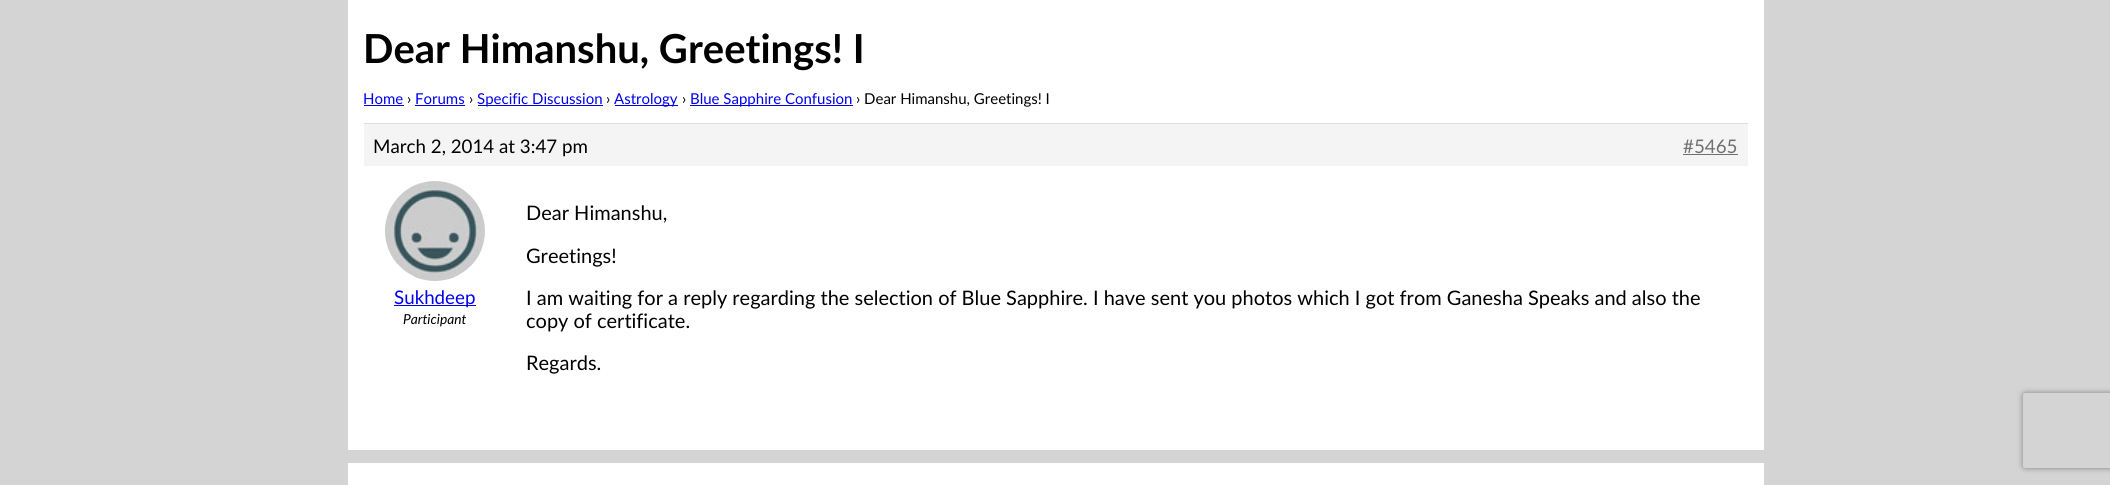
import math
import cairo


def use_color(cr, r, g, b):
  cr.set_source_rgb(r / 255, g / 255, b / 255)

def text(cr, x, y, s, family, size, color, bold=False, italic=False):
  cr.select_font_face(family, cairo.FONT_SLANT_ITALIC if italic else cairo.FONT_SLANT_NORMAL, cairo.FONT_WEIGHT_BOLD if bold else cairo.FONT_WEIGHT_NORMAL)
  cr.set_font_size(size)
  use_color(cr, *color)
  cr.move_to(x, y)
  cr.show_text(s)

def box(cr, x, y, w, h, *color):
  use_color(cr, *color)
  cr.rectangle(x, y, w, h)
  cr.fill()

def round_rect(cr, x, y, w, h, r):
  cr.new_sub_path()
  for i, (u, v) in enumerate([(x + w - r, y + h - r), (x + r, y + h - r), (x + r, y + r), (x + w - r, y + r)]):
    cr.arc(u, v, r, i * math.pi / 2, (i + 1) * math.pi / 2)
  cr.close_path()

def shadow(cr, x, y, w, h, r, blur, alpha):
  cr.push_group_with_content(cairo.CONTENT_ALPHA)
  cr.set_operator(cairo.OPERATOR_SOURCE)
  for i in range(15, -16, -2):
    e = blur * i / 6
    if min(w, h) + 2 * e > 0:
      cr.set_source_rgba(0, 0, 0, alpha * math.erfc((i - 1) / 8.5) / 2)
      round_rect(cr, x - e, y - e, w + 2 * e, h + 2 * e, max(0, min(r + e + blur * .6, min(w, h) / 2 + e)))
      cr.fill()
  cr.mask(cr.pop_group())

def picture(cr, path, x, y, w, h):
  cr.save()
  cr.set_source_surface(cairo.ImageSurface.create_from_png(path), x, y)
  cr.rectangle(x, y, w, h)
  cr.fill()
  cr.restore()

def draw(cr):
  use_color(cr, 212, 212, 212)
  cr.paint()
  box(cr, 348, 0, 1416, 450, 255, 255, 255)
  box(cr, 364, 105, 40, 1, 0, 0, 238)
  box(cr, 415, 105, 50, 1, 0, 0, 238)
  box(cr, 478, 105, 125, 1, 0, 0, 238)
  box(cr, 615, 105, 63, 1, 0, 0, 238)
  box(cr, 690, 105, 163, 1, 0, 0, 238)
  box(cr, 364, 124, 1384, 42, 244, 244, 244)
  box(cr, 364, 123, 1384, 1, 221, 221, 221)
  box(cr, 1683, 154, 55, 1, 112, 112, 112)
  picture(cr, "img_01.png", 385, 181, 100, 100)
  box(cr, 394, 305, 82, 1, 0, 0, 238)
  box(cr, 348, 463, 1416, 22, 255, 255, 255)
  cr.save()
  cr.set_fill_rule(cairo.FILL_RULE_EVEN_ODD)
  cr.new_path()
  cr.move_to(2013, 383)
  cr.line_to(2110, 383)
  cr.line_to(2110, 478)
  cr.line_to(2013, 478)
  cr.close_path()
  cr.move_to(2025.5, 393)
  cr.line_to(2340.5, 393)
  cr.curve_to(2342, 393, 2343, 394, 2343, 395.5)
  cr.line_to(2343, 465.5)
  cr.curve_to(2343, 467, 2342, 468, 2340.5, 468)
  cr.line_to(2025.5, 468)
  cr.curve_to(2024, 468, 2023, 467, 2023, 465.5)
  cr.line_to(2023, 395.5)
  cr.curve_to(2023, 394, 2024, 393, 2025.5, 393)
  cr.close_path()
  cr.clip()
  use_color(cr, 128, 128, 128)
  shadow(cr, 2023, 393, 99, 75, 2.5, 3, 1)
  cr.restore()
  text(cr, 363, 63, "Dear Himanshu, Greetings! I", "Lato", 40, (0, 0, 0), bold=True)
  text(cr, 363, 104, "Home", "Lato", 15, (0, 0, 238))
  text(cr, 407, 104, "›", "Lato", 15, (0, 0, 0))
  text(cr, 415, 104, "Forums", "Lato", 15, (0, 0, 238))
  text(cr, 469, 104, "›", "Lato", 15, (0, 0, 0))
  text(cr, 477, 104, "Specific Discussion", "Lato", 15, (0, 0, 238))
  text(cr, 606, 104, "›", "Lato", 15, (0, 0, 0))
  text(cr, 614, 104, "Astrology", "Lato", 15, (0, 0, 238))
  text(cr, 682, 104, "›", "Lato", 15, (0, 0, 0))
  text(cr, 690, 104, "Blue Sapphire Confusion", "Lato", 15, (0, 0, 238))
  text(cr, 856, 104, "› Dear Himanshu, Greetings! I", "Lato", 15, (0, 0, 0))
  text(cr, 373, 153, "March 2, 2014 at 3:47 pm", "Lato", 18.75, (0, 0, 0))
  text(cr, 1683, 153, "#5465", "Lato", 18.75, (112, 112, 112))
  text(cr, 394, 304, "Sukhdeep", "Lato", 18.75, (0, 0, 238))
  text(cr, 403, 324, "Participant", "Lato", 13.75, (0, 0, 0), italic=True)
  text(cr, 526, 220, "Dear Himanshu,", "Lato", 20, (0, 0, 0))
  text(cr, 526, 263, "Greetings!", "Lato", 20, (0, 0, 0))
  text(cr, 526, 305, "I am waiting for a reply regarding the selection of Blue Sapphire. I have sent you photos which I got from Ganesha Speaks and also the", "Lato", 20, (0, 0, 0))
  text(cr, 526, 328, "copy of certificate.", "Lato", 20, (0, 0, 0))
  text(cr, 526, 370, "Regards.", "Lato", 20, (0, 0, 0))


surface = cairo.ImageSurface(cairo.FORMAT_RGB24, 2110, 485)
cr = cairo.Context(surface)
options = cairo.FontOptions()
options.set_hint_metrics(cairo.HINT_METRICS_OFF)
options.set_hint_style(cairo.HINT_STYLE_NONE)
cr.set_font_options(options)
cr.set_miter_limit(4)
draw(cr)
surface.write_to_png("out.png")
